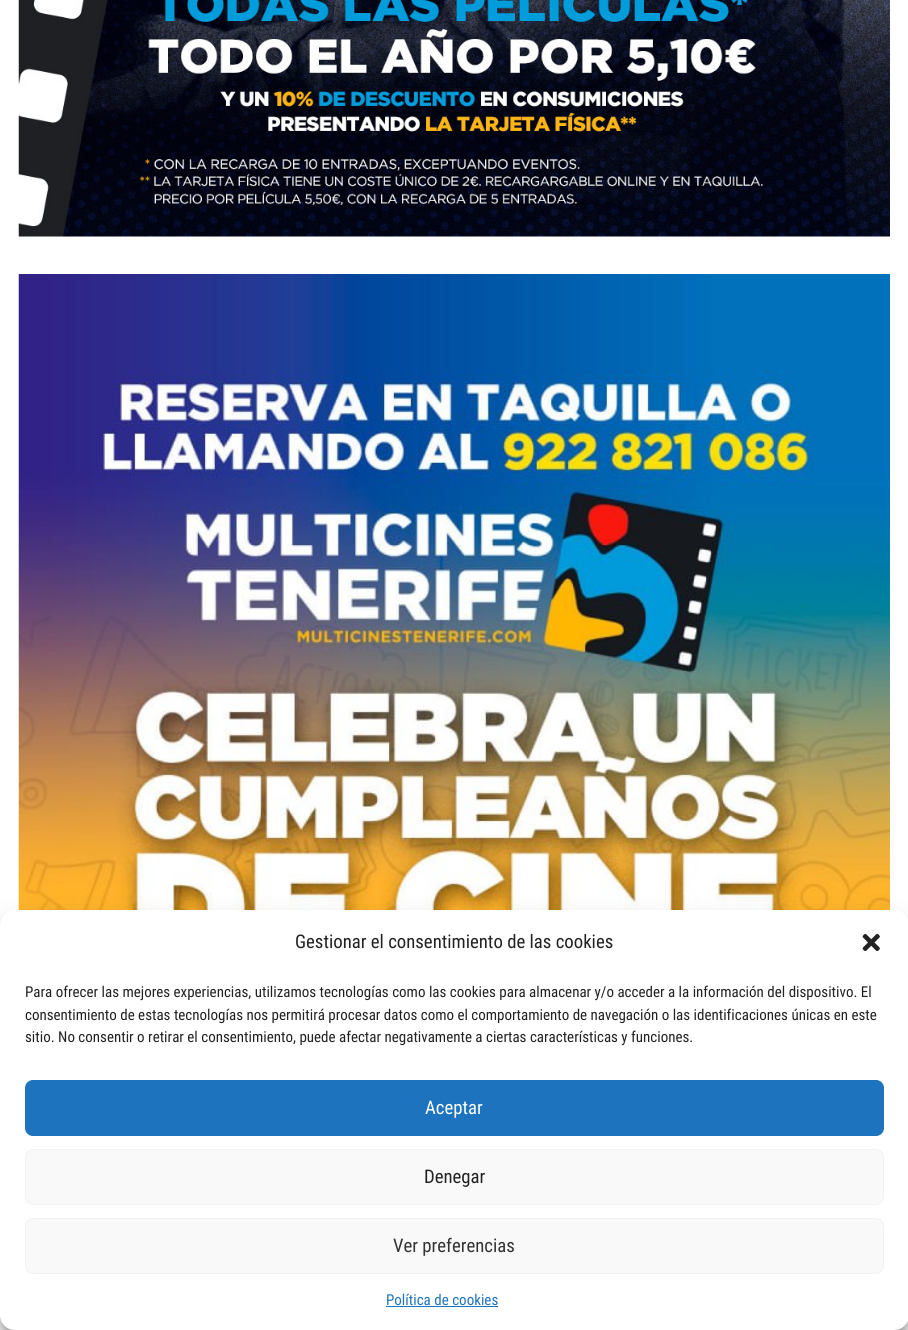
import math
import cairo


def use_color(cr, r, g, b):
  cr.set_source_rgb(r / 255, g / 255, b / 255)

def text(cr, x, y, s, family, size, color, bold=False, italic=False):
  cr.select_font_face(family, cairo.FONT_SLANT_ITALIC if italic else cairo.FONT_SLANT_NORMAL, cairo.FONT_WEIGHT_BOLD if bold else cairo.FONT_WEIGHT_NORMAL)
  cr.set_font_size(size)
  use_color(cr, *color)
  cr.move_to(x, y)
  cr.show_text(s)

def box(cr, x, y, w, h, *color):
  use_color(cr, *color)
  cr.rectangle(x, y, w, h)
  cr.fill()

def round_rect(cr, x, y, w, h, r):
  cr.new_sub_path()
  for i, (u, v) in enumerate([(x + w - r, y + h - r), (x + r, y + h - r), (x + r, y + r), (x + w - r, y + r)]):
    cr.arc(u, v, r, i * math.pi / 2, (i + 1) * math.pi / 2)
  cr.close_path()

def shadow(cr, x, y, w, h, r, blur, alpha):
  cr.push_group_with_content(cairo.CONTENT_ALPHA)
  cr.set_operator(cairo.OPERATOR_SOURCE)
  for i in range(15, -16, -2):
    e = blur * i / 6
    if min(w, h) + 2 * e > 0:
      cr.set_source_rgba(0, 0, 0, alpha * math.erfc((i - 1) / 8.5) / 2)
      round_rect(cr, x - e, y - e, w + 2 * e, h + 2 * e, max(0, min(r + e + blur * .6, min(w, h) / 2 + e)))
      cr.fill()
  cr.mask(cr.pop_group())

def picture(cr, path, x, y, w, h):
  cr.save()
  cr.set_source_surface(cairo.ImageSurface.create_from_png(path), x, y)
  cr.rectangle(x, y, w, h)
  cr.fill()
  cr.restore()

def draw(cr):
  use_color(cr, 255, 255, 255)
  cr.paint()
  picture(cr, "img_01.png", 18, 0, 872, 237)
  picture(cr, "img_02.png", 18, 274, 872, 636)
  use_color(cr, 0, 0, 0)
  shadow(cr, 0, 918, 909, 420, 15, 4, 0.23)
  shadow(cr, 0, 923, 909, 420, 15, 12.5, 0.19)
  use_color(cr, 255, 255, 255)
  round_rect(cr, 0, 910, 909, 420, 15)
  cr.fill()
  picture(cr, "img_03.png", 862, 933, 18, 19)
  use_color(cr, 30, 115, 190)
  round_rect(cr, 25.5, 1080.5, 858, 55, 7.5)
  cr.fill_preserve()
  cr.set_line_width(1)
  cr.stroke()
  use_color(cr, 249, 249, 249)
  round_rect(cr, 25.5, 1149.5, 858, 55, 7.5)
  cr.fill_preserve()
  use_color(cr, 242, 242, 242)
  cr.stroke()
  use_color(cr, 249, 249, 249)
  round_rect(cr, 25.5, 1218.5, 858, 55, 7.5)
  cr.fill_preserve()
  use_color(cr, 242, 242, 242)
  cr.stroke()
  box(cr, 386, 1306, 112, 1, 30, 115, 190)
  text(cr, 295, 948, "Gestionar el consentimiento de las cookies", "Roboto Condensed", 18.75, (34, 34, 34))
  text(cr, 25, 997, "Para ofrecer las mejores experiencias, utilizamos tecnologías como las cookies para almacenar y/o acceder a la información del dispositivo. El", "Roboto Condensed", 15, (34, 34, 34))
  text(cr, 25, 1020, "consentimiento de estas tecnologías nos permitirá procesar datos como el comportamiento de navegación o las identificaciones únicas en este", "Roboto Condensed", 15, (34, 34, 34))
  text(cr, 25, 1042, "sitio. No consentir o retirar el consentimiento, puede afectar negativamente a ciertas características y funciones.", "Roboto Condensed", 15, (34, 34, 34))
  text(cr, 425, 1114, "Aceptar", "Roboto Condensed", 18.75, (255, 255, 255))
  text(cr, 424, 1183, "Denegar", "Roboto Condensed", 18.75, (34, 34, 34))
  text(cr, 393, 1252, "Ver preferencias", "Roboto Condensed", 18.75, (51, 51, 51))
  text(cr, 386, 1305, "Política de cookies", "Roboto Condensed", 15, (30, 115, 190))


surface = cairo.ImageSurface(cairo.FORMAT_RGB24, 908, 1330)
cr = cairo.Context(surface)
options = cairo.FontOptions()
options.set_hint_metrics(cairo.HINT_METRICS_OFF)
options.set_hint_style(cairo.HINT_STYLE_NONE)
cr.set_font_options(options)
cr.set_miter_limit(4)
draw(cr)
surface.write_to_png("out.png")
